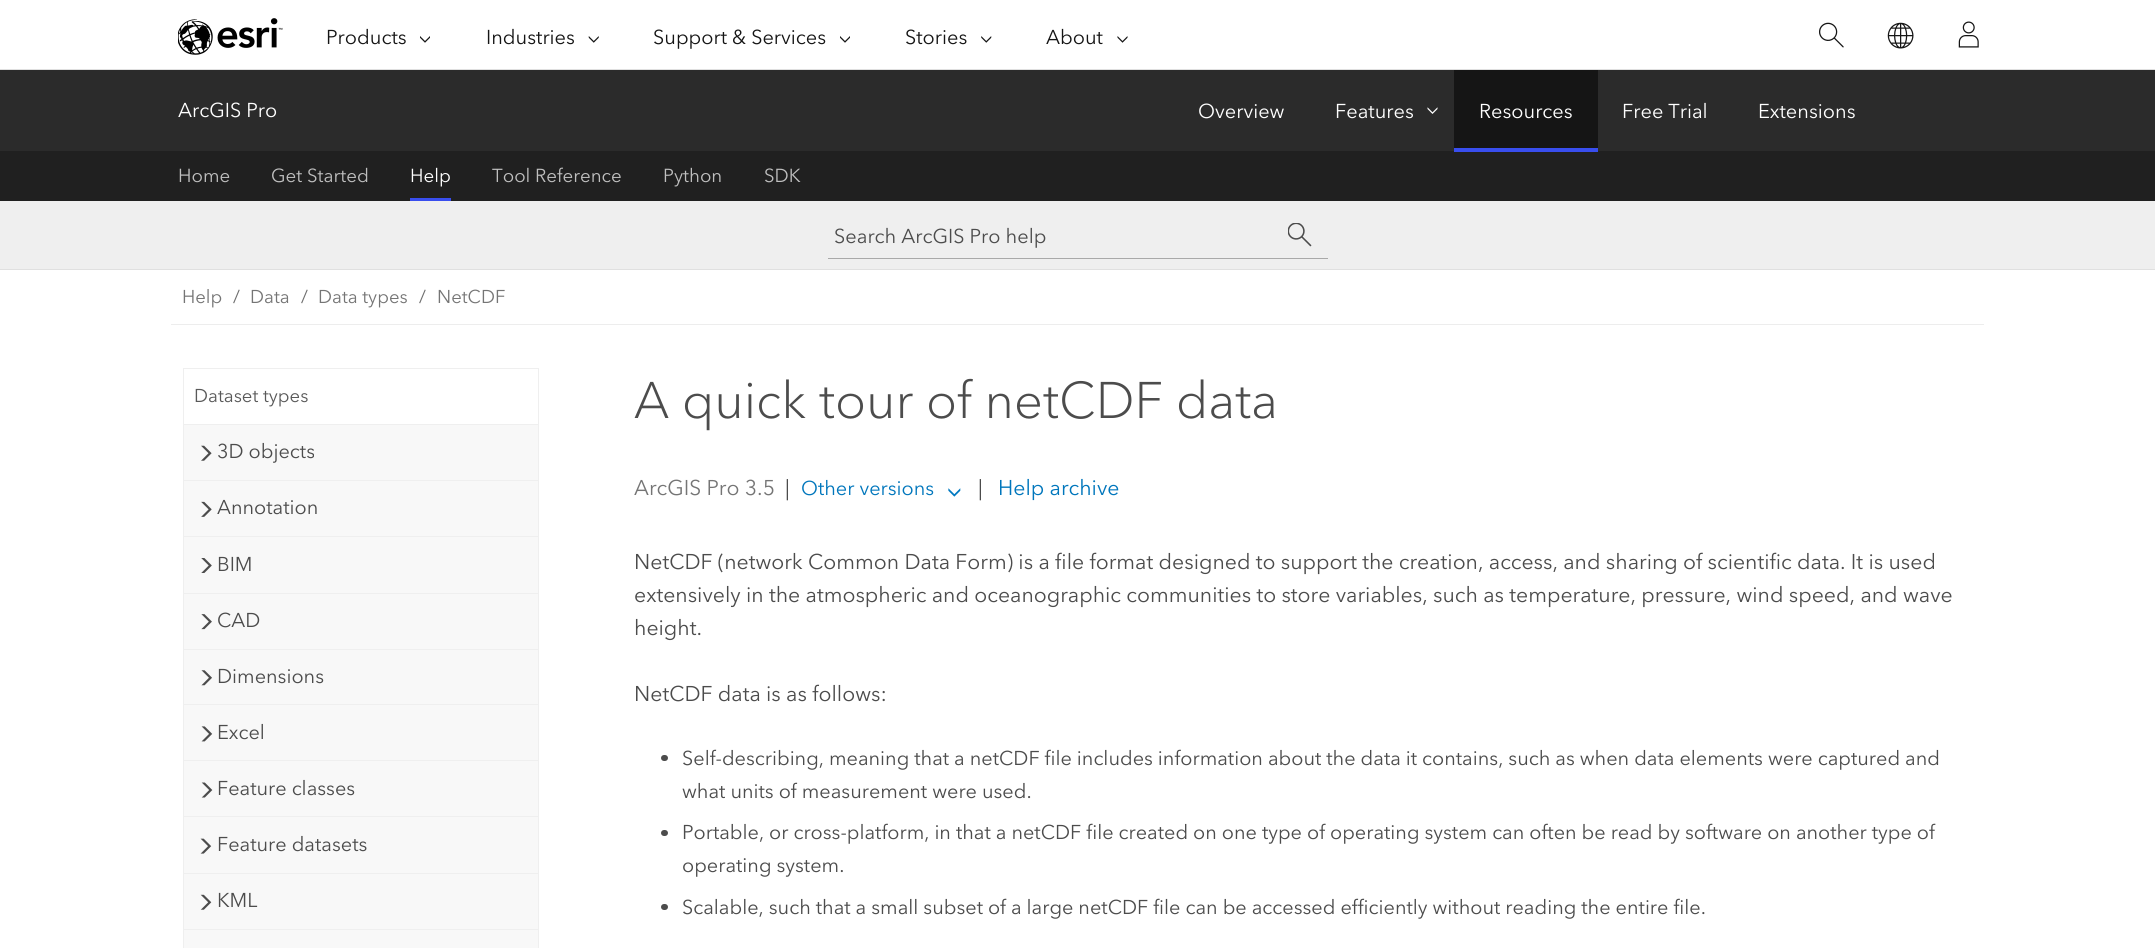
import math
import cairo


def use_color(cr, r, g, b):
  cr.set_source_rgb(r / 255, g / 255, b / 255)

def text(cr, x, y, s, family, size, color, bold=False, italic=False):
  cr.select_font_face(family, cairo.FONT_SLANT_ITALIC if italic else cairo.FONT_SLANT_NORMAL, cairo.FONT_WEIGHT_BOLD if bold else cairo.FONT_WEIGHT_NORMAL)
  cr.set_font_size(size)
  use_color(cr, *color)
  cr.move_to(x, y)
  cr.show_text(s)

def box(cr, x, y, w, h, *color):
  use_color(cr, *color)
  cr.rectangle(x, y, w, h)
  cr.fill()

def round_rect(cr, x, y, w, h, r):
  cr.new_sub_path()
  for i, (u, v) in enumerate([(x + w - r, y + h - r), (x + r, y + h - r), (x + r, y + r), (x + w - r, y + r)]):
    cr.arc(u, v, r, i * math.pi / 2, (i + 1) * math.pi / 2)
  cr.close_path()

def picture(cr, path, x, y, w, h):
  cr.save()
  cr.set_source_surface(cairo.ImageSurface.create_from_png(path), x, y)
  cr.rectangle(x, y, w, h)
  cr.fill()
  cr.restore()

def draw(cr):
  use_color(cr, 255, 255, 255)
  cr.paint()
  box(cr, 0, 69, 2155, 1, 223, 223, 223)
  picture(cr, "img_01.png", 178, 18, 105, 37)
  picture(cr, "img_02.png", 420, 36, 10, 7)
  picture(cr, "img_03.png", 588, 36, 11, 7)
  picture(cr, "img_02.png", 840, 36, 10, 7)
  picture(cr, "img_04.png", 981, 36, 11, 7)
  picture(cr, "img_05.png", 1117, 36, 11, 7)
  picture(cr, "img_06.png", 1819, 22, 25, 26)
  picture(cr, "img_07.png", 1887, 22, 27, 27)
  picture(cr, "img_08.png", 1958, 21, 21, 27)
  box(cr, 0, 70, 2155, 81, 43, 43, 43)
  picture(cr, "img_09.png", 1427, 107, 11, 7)
  box(cr, 1454, 70, 144, 78, 21, 21, 21)
  box(cr, 0, 151, 2155, 50, 32, 32, 32)
  box(cr, 1454, 148, 144, 4, 57, 78, 238)
  box(cr, 410, 198, 41, 3, 57, 78, 238)
  box(cr, 0, 201, 2155, 68, 239, 239, 239)
  box(cr, 0, 269, 2155, 1, 224, 224, 224)
  use_color(cr, 169, 169, 169)
  cr.new_path()
  cr.move_to(828, 258)
  cr.line_to(828, 259)
  cr.line_to(1328, 259)
  cr.line_to(1328, 215)
  cr.line_to(1328, 258)
  cr.close_path()
  cr.fill()
  picture(cr, "img_10.png", 1288, 223, 24, 24)
  box(cr, 171, 324, 1813, 1, 237, 237, 237)
  box(cr, 538, 368, 1, 580, 239, 239, 239)
  box(cr, 183, 368, 1, 580, 239, 239, 239)
  box(cr, 184, 368, 354, 1, 239, 239, 239)
  box(cr, 184, 425, 354, 55, 248, 248, 248)
  box(cr, 184, 424, 354, 1, 239, 239, 239)
  picture(cr, "img_11.png", 201, 445, 11, 16)
  box(cr, 184, 481, 354, 55, 248, 248, 248)
  box(cr, 184, 480, 354, 1, 239, 239, 239)
  picture(cr, "img_12.png", 201, 501, 11, 16)
  box(cr, 184, 537, 354, 56, 248, 248, 248)
  box(cr, 184, 536, 354, 1, 239, 239, 239)
  picture(cr, "img_13.png", 201, 558, 11, 15)
  box(cr, 184, 594, 354, 55, 248, 248, 248)
  box(cr, 184, 593, 354, 1, 239, 239, 239)
  picture(cr, "img_14.png", 201, 614, 11, 16)
  box(cr, 184, 650, 354, 54, 248, 248, 248)
  box(cr, 184, 649, 354, 1, 239, 239, 239)
  picture(cr, "img_15.png", 201, 670, 11, 16)
  box(cr, 184, 705, 354, 55, 248, 248, 248)
  box(cr, 184, 704, 354, 1, 239, 239, 239)
  picture(cr, "img_16.png", 201, 726, 12, 16)
  box(cr, 184, 761, 354, 55, 248, 248, 248)
  box(cr, 184, 760, 354, 1, 239, 239, 239)
  picture(cr, "img_17.png", 201, 782, 12, 16)
  box(cr, 184, 817, 354, 56, 248, 248, 248)
  box(cr, 184, 816, 354, 1, 239, 239, 239)
  picture(cr, "img_18.png", 200, 838, 12, 16)
  box(cr, 184, 874, 354, 55, 248, 248, 248)
  box(cr, 184, 873, 354, 1, 239, 239, 239)
  picture(cr, "img_19.png", 200, 894, 12, 16)
  box(cr, 184, 930, 354, 18, 248, 248, 248)
  box(cr, 184, 929, 354, 1, 239, 239, 239)
  picture(cr, "img_20.png", 948, 488, 13, 9)
  use_color(cr, 76, 76, 76)
  round_rect(cr, 661, 755, 7, 6, 3)
  cr.fill()
  round_rect(cr, 661, 830, 7, 6, 3)
  cr.fill()
  round_rect(cr, 661, 904, 7, 6, 3)
  cr.fill()
  text(cr, 326, 44, "Products", "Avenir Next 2", 20, (21, 21, 21))
  text(cr, 486, 44, "Industries", "Avenir Next 2", 20, (21, 21, 21))
  text(cr, 653, 44, "Support & Services", "Avenir Next 2", 20, (21, 21, 21))
  text(cr, 905, 44, "Stories", "Avenir Next 2", 20, (21, 21, 21))
  text(cr, 1046, 44, "About", "Avenir Next 2", 20, (21, 21, 21))
  text(cr, 178, 117, "ArcGIS Pro", "Avenir Next", 20, (255, 255, 255))
  text(cr, 1198, 118, "Overview", "Avenir Next", 20, (255, 255, 255))
  text(cr, 1335, 118, "Features", "Avenir Next", 20, (255, 255, 255))
  text(cr, 1479, 118, "Resources", "Avenir Next", 20, (255, 255, 255))
  text(cr, 1622, 118, "Free Trial", "Avenir Next", 20, (255, 255, 255))
  text(cr, 1758, 118, "Extensions", "Avenir Next", 20, (255, 255, 255))
  text(cr, 178, 182, "Home", "Avenir Next", 18.75, (191, 191, 191))
  text(cr, 271, 182, "Get Started", "Avenir Next", 18.75, (191, 191, 191))
  text(cr, 410, 182, "Help", "Avenir Next", 18.75, (255, 255, 255))
  text(cr, 492, 182, "Tool Reference", "Avenir Next", 18.75, (191, 191, 191))
  text(cr, 663, 182, "Python", "Avenir Next", 18.75, (191, 191, 191))
  text(cr, 764, 182, "SDK", "Avenir Next", 18.75, (191, 191, 191))
  text(cr, 834, 243, "Search ArcGIS Pro help", "Avenir Next", 20, (76, 76, 76))
  text(cr, 182, 303, "Help", "Avenir Next", 18.5, (117, 117, 117))
  text(cr, 233, 303, "/", "Avenir Next", 18.5, (110, 110, 110))
  text(cr, 250, 303, "Data", "Avenir Next", 18.5, (117, 117, 117))
  text(cr, 301, 303, "/", "Avenir Next", 18.5, (110, 110, 110))
  text(cr, 318, 303, "Data types", "Avenir Next", 18.5, (117, 117, 117))
  text(cr, 419, 303, "/", "Avenir Next", 18.5, (110, 110, 110))
  text(cr, 437, 303, "NetCDF", "Avenir Next", 18.5, (117, 117, 117))
  text(cr, 194, 402, "Dataset types", "Avenir Next", 18.5, (89, 89, 89))
  text(cr, 217, 458, "3D objects", "Avenir Next", 19.92, (76, 76, 76))
  text(cr, 217, 514, "Annotation", "Avenir Next", 19.92, (76, 76, 76))
  text(cr, 217, 571, "BIM", "Avenir Next", 19.92, (76, 76, 76))
  text(cr, 217, 627, "CAD", "Avenir Next", 19.92, (76, 76, 76))
  text(cr, 217, 683, "Dimensions", "Avenir Next", 19.92, (76, 76, 76))
  text(cr, 217, 739, "Excel", "Avenir Next", 19.92, (76, 76, 76))
  text(cr, 217, 795, "Feature classes", "Avenir Next", 19.92, (76, 76, 76))
  text(cr, 217, 851, "Feature datasets", "Avenir Next", 19.92, (76, 76, 76))
  text(cr, 217, 907, "KML", "Avenir Next", 19.92, (76, 76, 76))
  text(cr, 634, 418, "A quick tour of netCDF data", "Avenir Next Light", 51, (76, 76, 76))
  text(cr, 634, 495, "ArcGIS Pro 3.5", "Avenir Next", 21.25, (117, 117, 117))
  text(cr, 785, 495, "|", "Avenir Next", 21.25, (76, 76, 76))
  text(cr, 801, 495, "Other versions", "Avenir Next", 19.92, (0, 118, 188))
  text(cr, 978, 495, "|", "Avenir Next", 21.25, (76, 76, 76))
  text(cr, 998, 495, "Help archive", "Avenir Next", 21.25, (0, 118, 188))
  text(cr, 634, 569, "NetCDF (network Common Data Form) is a file format designed to support the creation, access, and sharing of scientific data. It is used", "Avenir Next", 21.25, (76, 76, 76))
  text(cr, 634, 602, "extensively in the atmospheric and oceanographic communities to store variables, such as temperature, pressure, wind speed, and wave", "Avenir Next", 21.25, (76, 76, 76))
  text(cr, 634, 635, "height.", "Avenir Next", 21.25, (76, 76, 76))
  text(cr, 634, 701, "NetCDF data is as follows:", "Avenir Next", 21.25, (76, 76, 76))
  text(cr, 682, 765, "Self-describing, meaning that a netCDF file includes information about the data it contains, such as when data elements were captured and", "Avenir Next", 19.92, (76, 76, 76))
  text(cr, 682, 798, "what units of measurement were used.", "Avenir Next", 19.92, (76, 76, 76))
  text(cr, 682, 839, "Portable, or cross-platform, in that a netCDF file created on one type of operating system can often be read by software on another type of", "Avenir Next", 19.92, (76, 76, 76))
  text(cr, 682, 872, "operating system.", "Avenir Next", 19.92, (76, 76, 76))
  text(cr, 682, 914, "Scalable, such that a small subset of a large netCDF file can be accessed efficiently without reading the entire file.", "Avenir Next", 19.92, (76, 76, 76))


surface = cairo.ImageSurface(cairo.FORMAT_RGB24, 2155, 948)
cr = cairo.Context(surface)
options = cairo.FontOptions()
options.set_hint_metrics(cairo.HINT_METRICS_OFF)
options.set_hint_style(cairo.HINT_STYLE_NONE)
cr.set_font_options(options)
cr.set_miter_limit(4)
draw(cr)
surface.write_to_png("out.png")
